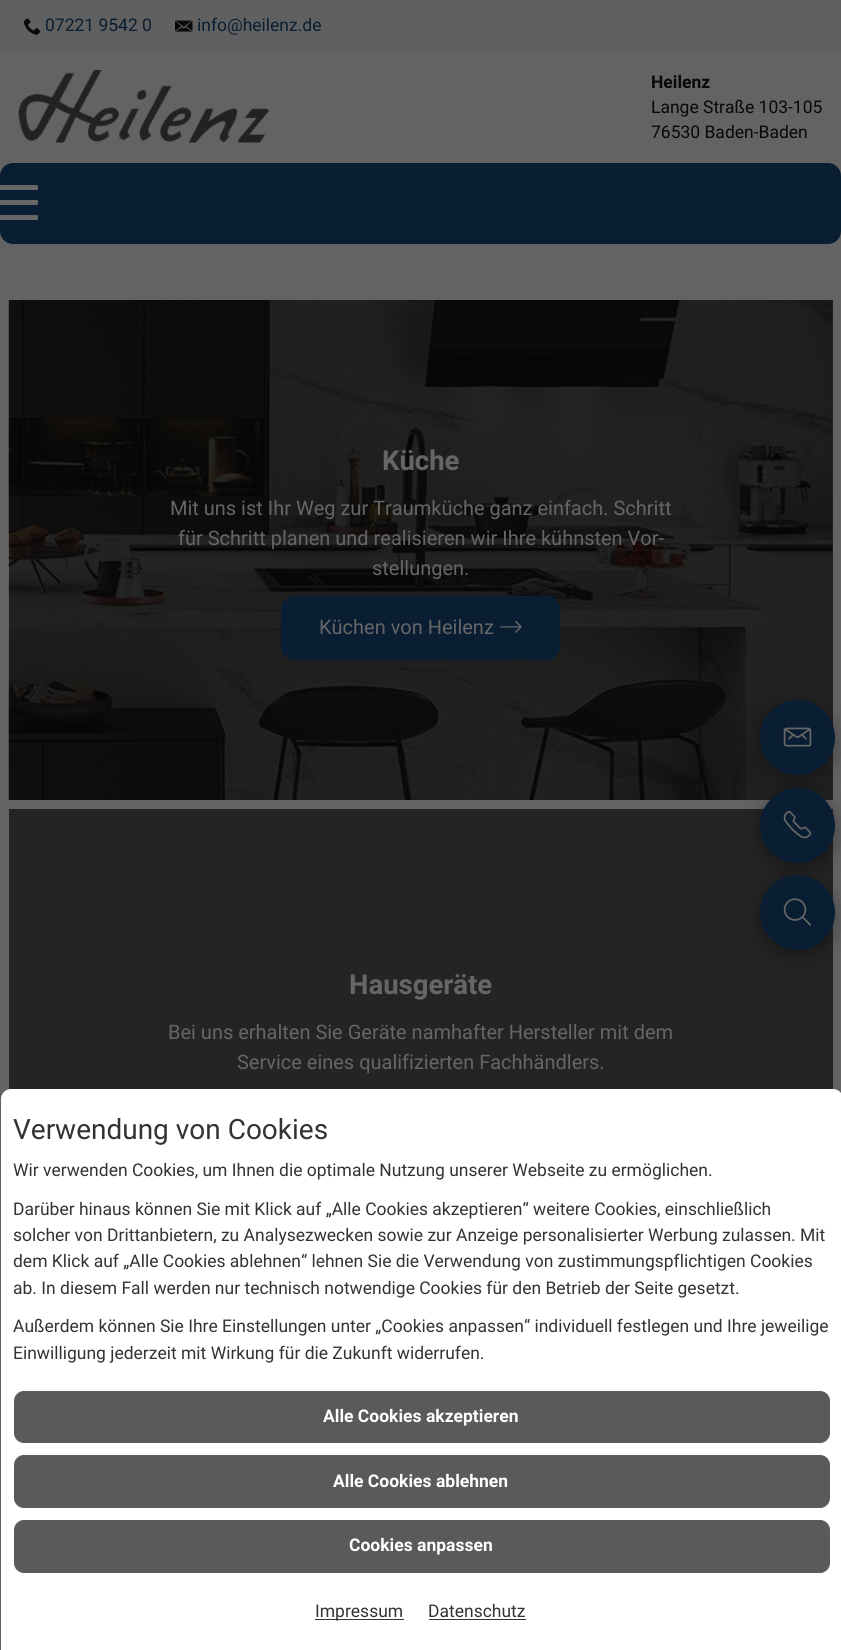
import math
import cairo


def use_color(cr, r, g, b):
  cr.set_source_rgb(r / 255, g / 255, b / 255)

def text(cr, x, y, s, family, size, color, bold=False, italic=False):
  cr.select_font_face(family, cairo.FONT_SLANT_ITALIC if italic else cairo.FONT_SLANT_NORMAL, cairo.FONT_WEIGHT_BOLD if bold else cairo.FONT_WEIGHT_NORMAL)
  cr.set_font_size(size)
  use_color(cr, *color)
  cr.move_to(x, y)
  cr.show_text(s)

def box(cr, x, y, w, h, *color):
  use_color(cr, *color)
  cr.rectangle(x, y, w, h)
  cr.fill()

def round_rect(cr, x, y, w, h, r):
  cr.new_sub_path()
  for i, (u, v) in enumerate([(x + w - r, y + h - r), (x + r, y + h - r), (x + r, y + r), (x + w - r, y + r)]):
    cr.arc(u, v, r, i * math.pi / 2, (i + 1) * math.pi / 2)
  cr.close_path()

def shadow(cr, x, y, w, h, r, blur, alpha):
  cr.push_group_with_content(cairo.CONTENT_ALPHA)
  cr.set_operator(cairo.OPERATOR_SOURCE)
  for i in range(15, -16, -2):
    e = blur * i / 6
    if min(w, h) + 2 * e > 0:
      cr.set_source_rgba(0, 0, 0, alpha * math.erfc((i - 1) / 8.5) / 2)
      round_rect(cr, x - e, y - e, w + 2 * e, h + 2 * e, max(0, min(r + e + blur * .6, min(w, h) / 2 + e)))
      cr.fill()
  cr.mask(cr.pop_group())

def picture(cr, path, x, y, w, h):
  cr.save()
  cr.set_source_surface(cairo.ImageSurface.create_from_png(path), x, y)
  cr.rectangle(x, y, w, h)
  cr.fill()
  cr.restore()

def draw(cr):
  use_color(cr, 99, 99, 99)
  cr.paint()
  box(cr, 0, 0, 841, 50, 96, 96, 96)
  picture(cr, "img_01.png", 23, 18, 18, 17)
  picture(cr, "img_02.png", 175, 20, 18, 12)
  picture(cr, "img_03.png", 18, 70, 251, 73)
  use_color(cr, 9, 30, 50)
  round_rect(cr, 0, 163, 841, 81, 13)
  cr.fill()
  use_color(cr, 102, 102, 102)
  round_rect(cr, 0, 185, 38, 5, 1)
  cr.fill()
  round_rect(cr, 0, 200, 38, 5, 1)
  cr.fill()
  round_rect(cr, 0, 215, 38, 5, 1)
  cr.fill()
  box(cr, 832, 300, 1, 500, 36, 36, 36)
  picture(cr, "img_04.png", 8, 300, 825, 500)
  use_color(cr, 9, 30, 50)
  round_rect(cr, 281, 596, 279, 64, 13)
  cr.fill()
  picture(cr, "img_05.png", 500, 620, 22, 13)
  box(cr, 9, 809, 824, 281, 36, 36, 36)
  use_color(cr, 0, 0, 0)
  shadow(cr, 760, 706, 75, 75, 37.5, 9.5, 0.35)
  use_color(cr, 9, 30, 50)
  cr.arc(797.5, 737.5, 37.5, 0, 2 * math.pi)
  cr.fill()
  picture(cr, "img_06.png", 783, 727, 29, 20)
  use_color(cr, 0, 0, 0)
  shadow(cr, 760, 794, 75, 75, 37.5, 9.5, 0.35)
  use_color(cr, 9, 30, 50)
  cr.arc(797.5, 825.5, 37.5, 0, 2 * math.pi)
  cr.fill()
  picture(cr, "img_07.png", 783, 810, 29, 29)
  use_color(cr, 0, 0, 0)
  shadow(cr, 760, 881, 75, 75, 37.5, 9.5, 0.35)
  use_color(cr, 9, 30, 50)
  cr.arc(797.5, 912.5, 37.5, 0, 2 * math.pi)
  cr.fill()
  picture(cr, "img_08.png", 783, 898, 29, 28)
  use_color(cr, 255, 255, 255)
  cr.new_path()
  cr.move_to(11, 1089)
  cr.line_to(833, 1089)
  cr.curve_to(838.5, 1089, 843, 1093.5, 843, 1099)
  cr.line_to(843, 1650)
  cr.line_to(1, 1650)
  cr.line_to(1, 1099)
  cr.curve_to(1, 1093.5, 5.5, 1089, 11, 1089)
  cr.close_path()
  cr.fill()
  use_color(cr, 90, 90, 90)
  round_rect(cr, 14.5, 1391.5, 815, 51, 9.5)
  cr.fill_preserve()
  cr.set_line_width(1)
  cr.stroke()
  round_rect(cr, 14.5, 1455.5, 815, 52, 9.5)
  cr.fill_preserve()
  cr.stroke()
  round_rect(cr, 14.5, 1520.5, 815, 52, 9.5)
  cr.fill_preserve()
  cr.stroke()
  box(cr, 315, 1619, 89, 1, 51, 51, 51)
  box(cr, 429, 1619, 97, 1, 51, 51, 51)
  text(cr, 45, 31, "07221 9542 0", "Roboto", 17.5, (9, 30, 50))
  text(cr, 197, 31, "info@heilenz.de", "Roboto", 17.5, (9, 30, 50))
  text(cr, 651, 88, "Heilenz", "Roboto", 17.5, (8, 8, 8), bold=True)
  text(cr, 651, 113, "Lange Straße 103-105", "Roboto", 17.5, (8, 8, 8))
  text(cr, 651, 138, "76530 Baden-Baden", "Roboto", 17.5, (8, 8, 8))
  text(cr, 382, 470, "Küche", "Roboto", 27.5, (102, 102, 102), bold=True)
  text(cr, 170, 515, "Mit uns ist Ihr Weg zur Traumküche ganz einfach. Schritt", "Roboto", 20, (102, 102, 102))
  text(cr, 178, 545, "für Schritt planen und realisieren wir Ihre kühnsten Vor-", "Roboto", 20, (102, 102, 102))
  text(cr, 372, 575, "stellungen.", "Roboto", 20, (102, 102, 102))
  text(cr, 319, 634, "Küchen von Heilenz", "Roboto", 20, (102, 102, 102))
  text(cr, 349, 994, "Hausgeräte", "Roboto", 27.5, (102, 102, 102), bold=True)
  text(cr, 168, 1039, "Bei uns erhalten Sie Geräte namhafter Hersteller mit dem", "Roboto", 20, (102, 102, 102))
  text(cr, 237, 1069, "Service eines qualifizierten Fachhändlers.", "Roboto", 20, (102, 102, 102))
  text(cr, 13, 1139, "Verwendung von Cookies", "Roboto", 28, (51, 51, 51))
  text(cr, 13, 1176, "Wir verwenden Cookies, um Ihnen die optimale Nutzung unserer Webseite zu ermöglichen.", "Roboto", 17.5, (51, 51, 51))
  text(cr, 13, 1215, "Darüber hinaus können Sie mit Klick auf „Alle Cookies akzeptieren“ weitere Cookies, einschließlich", "Roboto", 17.5, (51, 51, 51))
  text(cr, 13, 1241, "solcher von Drittanbietern, zu Analysezwecken sowie zur Anzeige personalisierter Werbung zulassen. Mit", "Roboto", 17.5, (51, 51, 51))
  text(cr, 13, 1267, "dem Klick auf „Alle Cookies ablehnen“ lehnen Sie die Verwendung von zustimmungspflichtigen Cookies", "Roboto", 17.5, (51, 51, 51))
  text(cr, 13, 1294, "ab. In diesem Fall werden nur technisch notwendige Cookies für den Betrieb der Seite gesetzt.", "Roboto", 17.5, (51, 51, 51))
  text(cr, 13, 1332, "Außerdem können Sie Ihre Einstellungen unter „Cookies anpassen“ individuell festlegen und Ihre jeweilige", "Roboto", 17.5, (51, 51, 51))
  text(cr, 13, 1359, "Einwilligung jederzeit mit Wirkung für die Zukunft widerrufen.", "Roboto", 17.5, (51, 51, 51))
  text(cr, 323, 1422, "Alle Cookies akzeptieren", "Roboto", 17.5, (255, 255, 255), bold=True)
  text(cr, 333, 1487, "Alle Cookies ablehnen", "Roboto", 17.5, (255, 255, 255), bold=True)
  text(cr, 349, 1551, "Cookies anpassen", "Roboto", 17.5, (255, 255, 255), bold=True)
  text(cr, 315, 1617, "Impressum", "Roboto", 17.5, (51, 51, 51))
  text(cr, 428, 1617, "Datenschutz", "Roboto", 17.5, (51, 51, 51))


surface = cairo.ImageSurface(cairo.FORMAT_RGB24, 841, 1650)
cr = cairo.Context(surface)
options = cairo.FontOptions()
options.set_hint_metrics(cairo.HINT_METRICS_OFF)
options.set_hint_style(cairo.HINT_STYLE_NONE)
cr.set_font_options(options)
cr.set_miter_limit(4)
draw(cr)
surface.write_to_png("out.png")
